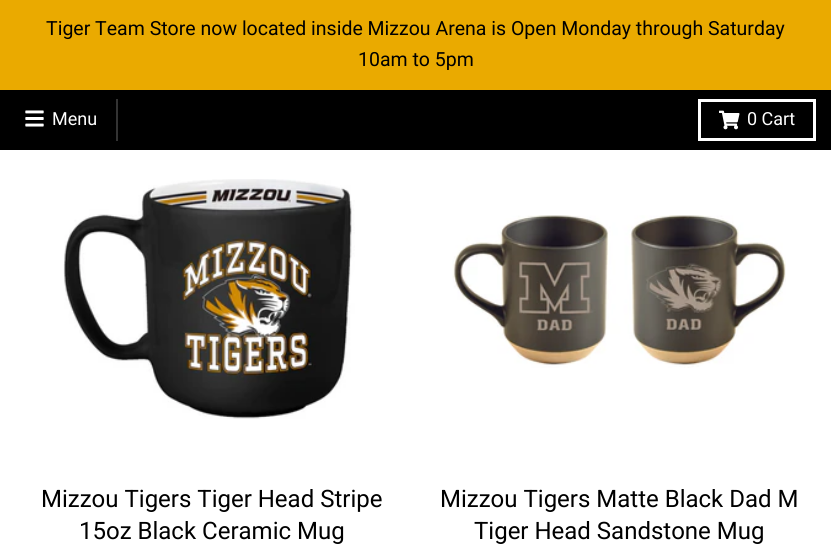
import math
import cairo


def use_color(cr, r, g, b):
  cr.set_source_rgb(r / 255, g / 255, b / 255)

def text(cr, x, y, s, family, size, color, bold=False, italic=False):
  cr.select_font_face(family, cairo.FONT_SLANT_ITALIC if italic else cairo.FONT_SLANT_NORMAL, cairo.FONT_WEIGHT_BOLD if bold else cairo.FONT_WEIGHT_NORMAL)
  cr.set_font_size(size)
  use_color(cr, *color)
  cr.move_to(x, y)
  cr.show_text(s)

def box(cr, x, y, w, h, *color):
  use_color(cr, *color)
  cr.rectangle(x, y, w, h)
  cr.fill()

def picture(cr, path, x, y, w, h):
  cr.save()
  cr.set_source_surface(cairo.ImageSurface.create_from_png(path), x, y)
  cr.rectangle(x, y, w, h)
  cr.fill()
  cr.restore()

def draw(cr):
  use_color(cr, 255, 255, 255)
  cr.paint()
  box(cr, 0, 0, 831, 90, 234, 170, 0)
  box(cr, 0, 90, 831, 60, 0, 0, 0)
  box(cr, 116, 99, 2, 42, 51, 51, 51)
  picture(cr, "img_01.png", 25, 110, 19, 17)
  cr.rectangle(699.5, 100.5, 115, 39)
  use_color(cr, 255, 255, 255)
  cr.set_line_width(3)
  cr.stroke()
  picture(cr, "img_02.png", 719, 110, 21, 20)
  picture(cr, "img_03.png", 63, 179, 292, 240)
  picture(cr, "img_04.png", 452, 215, 334, 153)
  text(cr, 46, 35, "Tiger Team Store now located inside Mizzou Arena is Open Monday through Saturday", "Roboto", 19.5, (0, 0, 0))
  text(cr, 358, 66, "10am to 5pm", "Roboto", 19.5, (0, 0, 0))
  text(cr, 52, 125, "Menu", "Roboto", 18, (255, 255, 255))
  text(cr, 747, 125, "0 Cart", "Roboto", 18, (255, 255, 255))
  text(cr, 41, 507, "Mizzou Tigers Tiger Head Stripe", "Roboto", 24, (0, 0, 0))
  text(cr, 79, 539, "15oz Black Ceramic Mug", "Roboto", 24, (0, 0, 0))
  text(cr, 440, 507, "Mizzou Tigers Matte Black Dad M", "Roboto", 24, (0, 0, 0))
  text(cr, 474, 539, "Tiger Head Sandstone Mug", "Roboto", 24, (0, 0, 0))


surface = cairo.ImageSurface(cairo.FORMAT_RGB24, 831, 552)
cr = cairo.Context(surface)
options = cairo.FontOptions()
options.set_hint_metrics(cairo.HINT_METRICS_OFF)
options.set_hint_style(cairo.HINT_STYLE_NONE)
cr.set_font_options(options)
cr.set_miter_limit(4)
draw(cr)
surface.write_to_png("out.png")
